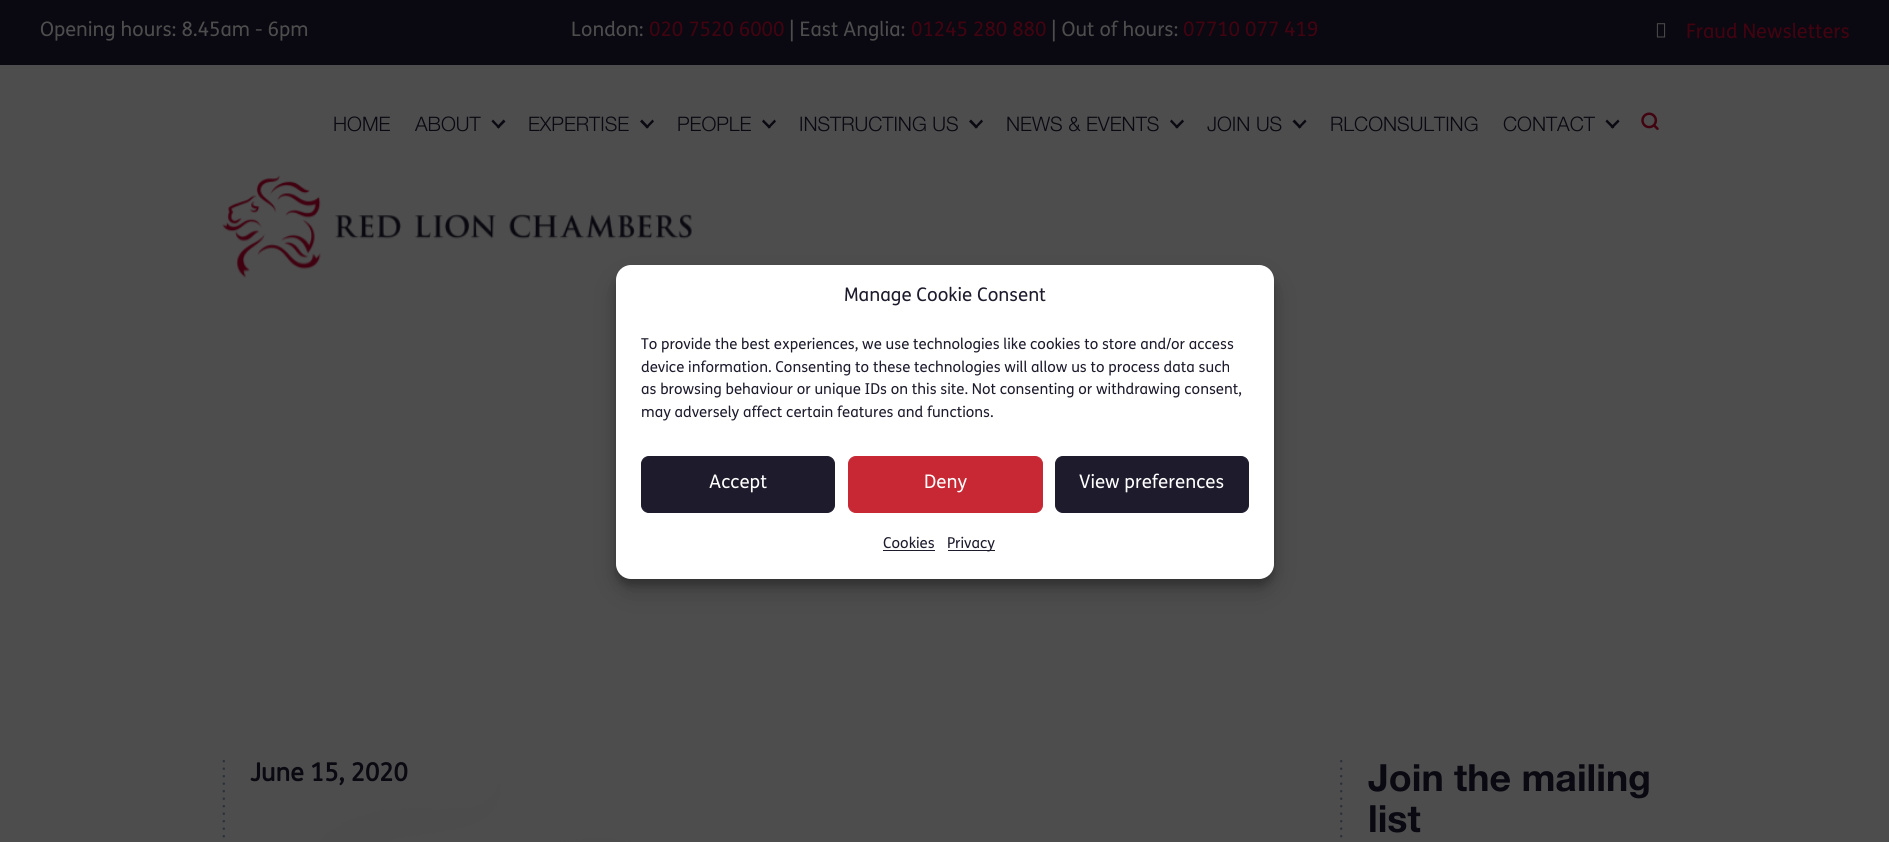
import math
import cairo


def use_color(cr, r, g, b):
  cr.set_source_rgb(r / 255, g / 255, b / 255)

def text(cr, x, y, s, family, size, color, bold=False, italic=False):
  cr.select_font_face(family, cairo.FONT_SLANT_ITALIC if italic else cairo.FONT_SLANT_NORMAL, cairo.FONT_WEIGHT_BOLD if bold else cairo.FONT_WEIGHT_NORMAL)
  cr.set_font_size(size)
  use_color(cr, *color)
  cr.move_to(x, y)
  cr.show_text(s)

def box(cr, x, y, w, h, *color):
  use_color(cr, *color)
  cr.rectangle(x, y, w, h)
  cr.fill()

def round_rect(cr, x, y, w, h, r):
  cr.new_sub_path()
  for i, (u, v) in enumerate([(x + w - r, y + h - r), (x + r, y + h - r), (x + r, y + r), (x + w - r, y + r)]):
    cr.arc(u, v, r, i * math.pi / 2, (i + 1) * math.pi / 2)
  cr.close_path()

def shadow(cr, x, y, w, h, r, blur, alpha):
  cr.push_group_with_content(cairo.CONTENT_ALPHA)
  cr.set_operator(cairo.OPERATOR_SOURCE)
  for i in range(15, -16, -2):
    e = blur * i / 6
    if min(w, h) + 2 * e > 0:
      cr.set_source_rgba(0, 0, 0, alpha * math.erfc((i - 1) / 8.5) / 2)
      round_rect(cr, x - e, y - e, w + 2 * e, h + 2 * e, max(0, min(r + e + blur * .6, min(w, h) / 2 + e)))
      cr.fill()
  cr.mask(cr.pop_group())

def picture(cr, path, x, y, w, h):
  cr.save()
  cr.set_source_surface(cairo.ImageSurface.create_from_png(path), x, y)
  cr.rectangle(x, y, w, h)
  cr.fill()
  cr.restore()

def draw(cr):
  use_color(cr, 77, 77, 77)
  cr.paint()
  box(cr, 0, 0, 1889, 65, 10, 8, 16)
  picture(cr, "img_01.png", 1656, 23, 10, 15)
  cr.new_path()
  cr.move_to(503.5, 119.5)
  cr.line_to(505.5, 121.5)
  cr.line_to(498.5, 128.5)
  cr.line_to(496.5, 127)
  cr.close_path()
  cr.fill()
  cr.new_path()
  cr.move_to(493, 119.5)
  cr.line_to(500, 127)
  cr.line_to(498.5, 128.5)
  cr.line_to(491.5, 121.5)
  cr.close_path()
  cr.fill()
  cr.new_path()
  cr.move_to(652.5, 119.5)
  cr.line_to(654, 121.5)
  cr.line_to(647, 128.5)
  cr.line_to(645.5, 127)
  cr.close_path()
  cr.fill()
  cr.new_path()
  cr.move_to(642, 119.5)
  cr.line_to(649, 127)
  cr.line_to(647, 128.5)
  cr.line_to(640, 121.5)
  cr.close_path()
  cr.fill()
  cr.new_path()
  cr.move_to(774.5, 119.5)
  cr.line_to(776, 121.5)
  cr.line_to(769, 128.5)
  cr.line_to(767.5, 127)
  cr.close_path()
  cr.fill()
  cr.new_path()
  cr.move_to(763.5, 119.5)
  cr.line_to(771, 127)
  cr.line_to(769, 128.5)
  cr.line_to(762, 121.5)
  cr.close_path()
  cr.fill()
  cr.new_path()
  cr.move_to(981.5, 119.5)
  cr.line_to(983, 121.5)
  cr.line_to(976, 128.5)
  cr.line_to(974.5, 127)
  cr.close_path()
  cr.fill()
  cr.new_path()
  cr.move_to(971, 119.5)
  cr.line_to(978, 127)
  cr.line_to(976, 128.5)
  cr.line_to(969, 121.5)
  cr.close_path()
  cr.fill()
  cr.new_path()
  cr.move_to(1182.5, 119.5)
  cr.line_to(1184, 121.5)
  cr.line_to(1177, 128.5)
  cr.line_to(1175, 127)
  cr.close_path()
  cr.fill()
  cr.new_path()
  cr.move_to(1171.5, 119.5)
  cr.line_to(1178.5, 127)
  cr.line_to(1177, 128.5)
  cr.line_to(1170, 121.5)
  cr.close_path()
  cr.fill()
  cr.new_path()
  cr.move_to(1305, 119.5)
  cr.line_to(1306.5, 121.5)
  cr.line_to(1299.5, 128.5)
  cr.line_to(1298, 127)
  cr.close_path()
  cr.fill()
  cr.new_path()
  cr.move_to(1294.5, 119.5)
  cr.line_to(1301.5, 127)
  cr.line_to(1299.5, 128.5)
  cr.line_to(1292.5, 121.5)
  cr.close_path()
  cr.fill()
  cr.new_path()
  cr.move_to(1618, 119.5)
  cr.line_to(1619.5, 121.5)
  cr.line_to(1612.5, 128.5)
  cr.line_to(1610.5, 127)
  cr.close_path()
  cr.fill()
  cr.new_path()
  cr.move_to(1607, 119.5)
  cr.line_to(1614.5, 127)
  cr.line_to(1612.5, 128.5)
  cr.line_to(1605.5, 121.5)
  cr.close_path()
  cr.fill()
  picture(cr, "img_02.png", 1641, 112, 18, 18)
  picture(cr, "img_03.png", 222, 175, 470, 103)
  picture(cr, "img_04.png", 318, 784, 313, 58)
  cr.new_path()
  cr.move_to(223.8, 761.2)
  cr.line_to(223.8, 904)
  use_color(cr, 44, 49, 56)
  cr.set_line_width(2.5)
  cr.set_line_cap(cairo.LINE_CAP_ROUND)
  cr.set_dash([0, 7.5])
  cr.stroke()
  cr.new_path()
  cr.move_to(1341.2, 761.2)
  cr.line_to(1341.2, 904)
  cr.stroke()
  use_color(cr, 0, 0, 0)
  shadow(cr, 616, 273, 658, 313, 15, 4, 0.23)
  shadow(cr, 616, 278, 658, 313, 15, 12.5, 0.19)
  use_color(cr, 255, 255, 255)
  round_rect(cr, 616, 265, 658, 314, 15)
  cr.fill()
  use_color(cr, 29, 27, 44)
  round_rect(cr, 641.5, 456.5, 193, 56, 7.5)
  cr.fill_preserve()
  cr.set_line_width(1)
  cr.set_line_cap(cairo.LINE_CAP_BUTT)
  cr.set_dash([])
  cr.stroke()
  use_color(cr, 200, 40, 51)
  round_rect(cr, 848.5, 456.5, 194, 56, 7.5)
  cr.fill_preserve()
  cr.stroke()
  use_color(cr, 29, 27, 44)
  round_rect(cr, 1055.5, 456.5, 193, 56, 7.5)
  cr.fill_preserve()
  cr.stroke()
  box(cr, 883, 550, 52, 1, 29, 27, 44)
  box(cr, 948, 550, 47, 1, 29, 27, 44)
  text(cr, 40, 36, "Opening hours: 8.45am - 6pm", "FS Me", 20, (77, 77, 77))
  text(cr, 571, 36, "London:", "FS Me", 20, (77, 77, 77))
  text(cr, 649, 36, "020 7520 6000", "FS Me", 20, (66, 3, 17))
  text(cr, 789, 36, "| East Anglia:", "FS Me", 20, (77, 77, 77))
  text(cr, 911, 36, "01245 280 880", "FS Me", 20, (66, 3, 17))
  text(cr, 1051, 36, "| Out of hours:", "FS Me", 20, (77, 77, 77))
  text(cr, 1183, 36, "07710 077 419", "FS Me", 20, (66, 3, 17))
  text(cr, 1686, 38, "Fraud Newsletters", "FS Me", 20, (66, 3, 17))
  text(cr, 333, 131, "HOME", "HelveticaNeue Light", 20, (10, 8, 16))
  text(cr, 415, 131, "ABOUT", "HelveticaNeue Light", 20, (10, 8, 16))
  text(cr, 528, 131, "EXPERTISE", "HelveticaNeue Light", 20, (10, 8, 16))
  text(cr, 677, 131, "PEOPLE", "HelveticaNeue Light", 20, (10, 8, 16))
  text(cr, 799, 131, "INSTRUCTING US", "HelveticaNeue Light", 20, (10, 8, 16))
  text(cr, 1006, 131, "NEWS & EVENTS", "HelveticaNeue Light", 20, (10, 8, 16))
  text(cr, 1207, 131, "JOIN US", "HelveticaNeue Light", 20, (10, 8, 16))
  text(cr, 1330, 131, "RLCONSULTING", "HelveticaNeue Light", 20, (10, 8, 16))
  text(cr, 1503, 131, "CONTACT", "HelveticaNeue Light", 20, (10, 8, 16))
  text(cr, 250, 781, "June 15, 2020", "FS Me", 25, (10, 8, 16), bold=True)
  text(cr, 1368, 791, "Join the mailing", "HelveticaNeue", 37.5, (10, 8, 16), bold=True)
  text(cr, 1368, 832, "list", "HelveticaNeue", 37.5, (10, 8, 16), bold=True)
  text(cr, 844, 301, "Manage Cookie Consent", "FS Me", 18.75, (29, 27, 44))
  text(cr, 641, 349, "To provide the best experiences, we use technologies like cookies to store and/or access", "FS Me", 15, (29, 27, 44))
  text(cr, 641, 372, "device information. Consenting to these technologies will allow us to process data such", "FS Me", 15, (29, 27, 44))
  text(cr, 641, 394, "as browsing behaviour or unique IDs on this site. Not consenting or withdrawing consent,", "FS Me", 15, (29, 27, 44))
  text(cr, 641, 417, "may adversely affect certain features and functions.", "FS Me", 15, (29, 27, 44))
  text(cr, 709, 488, "Accept", "FS Me", 18.75, (255, 255, 255))
  text(cr, 924, 488, "Deny", "FS Me", 18.75, (255, 255, 255))
  text(cr, 1079, 488, "View preferences", "FS Me", 18.75, (255, 255, 255))
  text(cr, 883, 548, "Cookies", "FS Me", 15, (29, 27, 44))
  text(cr, 947, 548, "Privacy", "FS Me", 15, (29, 27, 44))


surface = cairo.ImageSurface(cairo.FORMAT_RGB24, 1889, 842)
cr = cairo.Context(surface)
options = cairo.FontOptions()
options.set_hint_metrics(cairo.HINT_METRICS_OFF)
options.set_hint_style(cairo.HINT_STYLE_NONE)
cr.set_font_options(options)
cr.set_miter_limit(4)
draw(cr)
surface.write_to_png("out.png")
